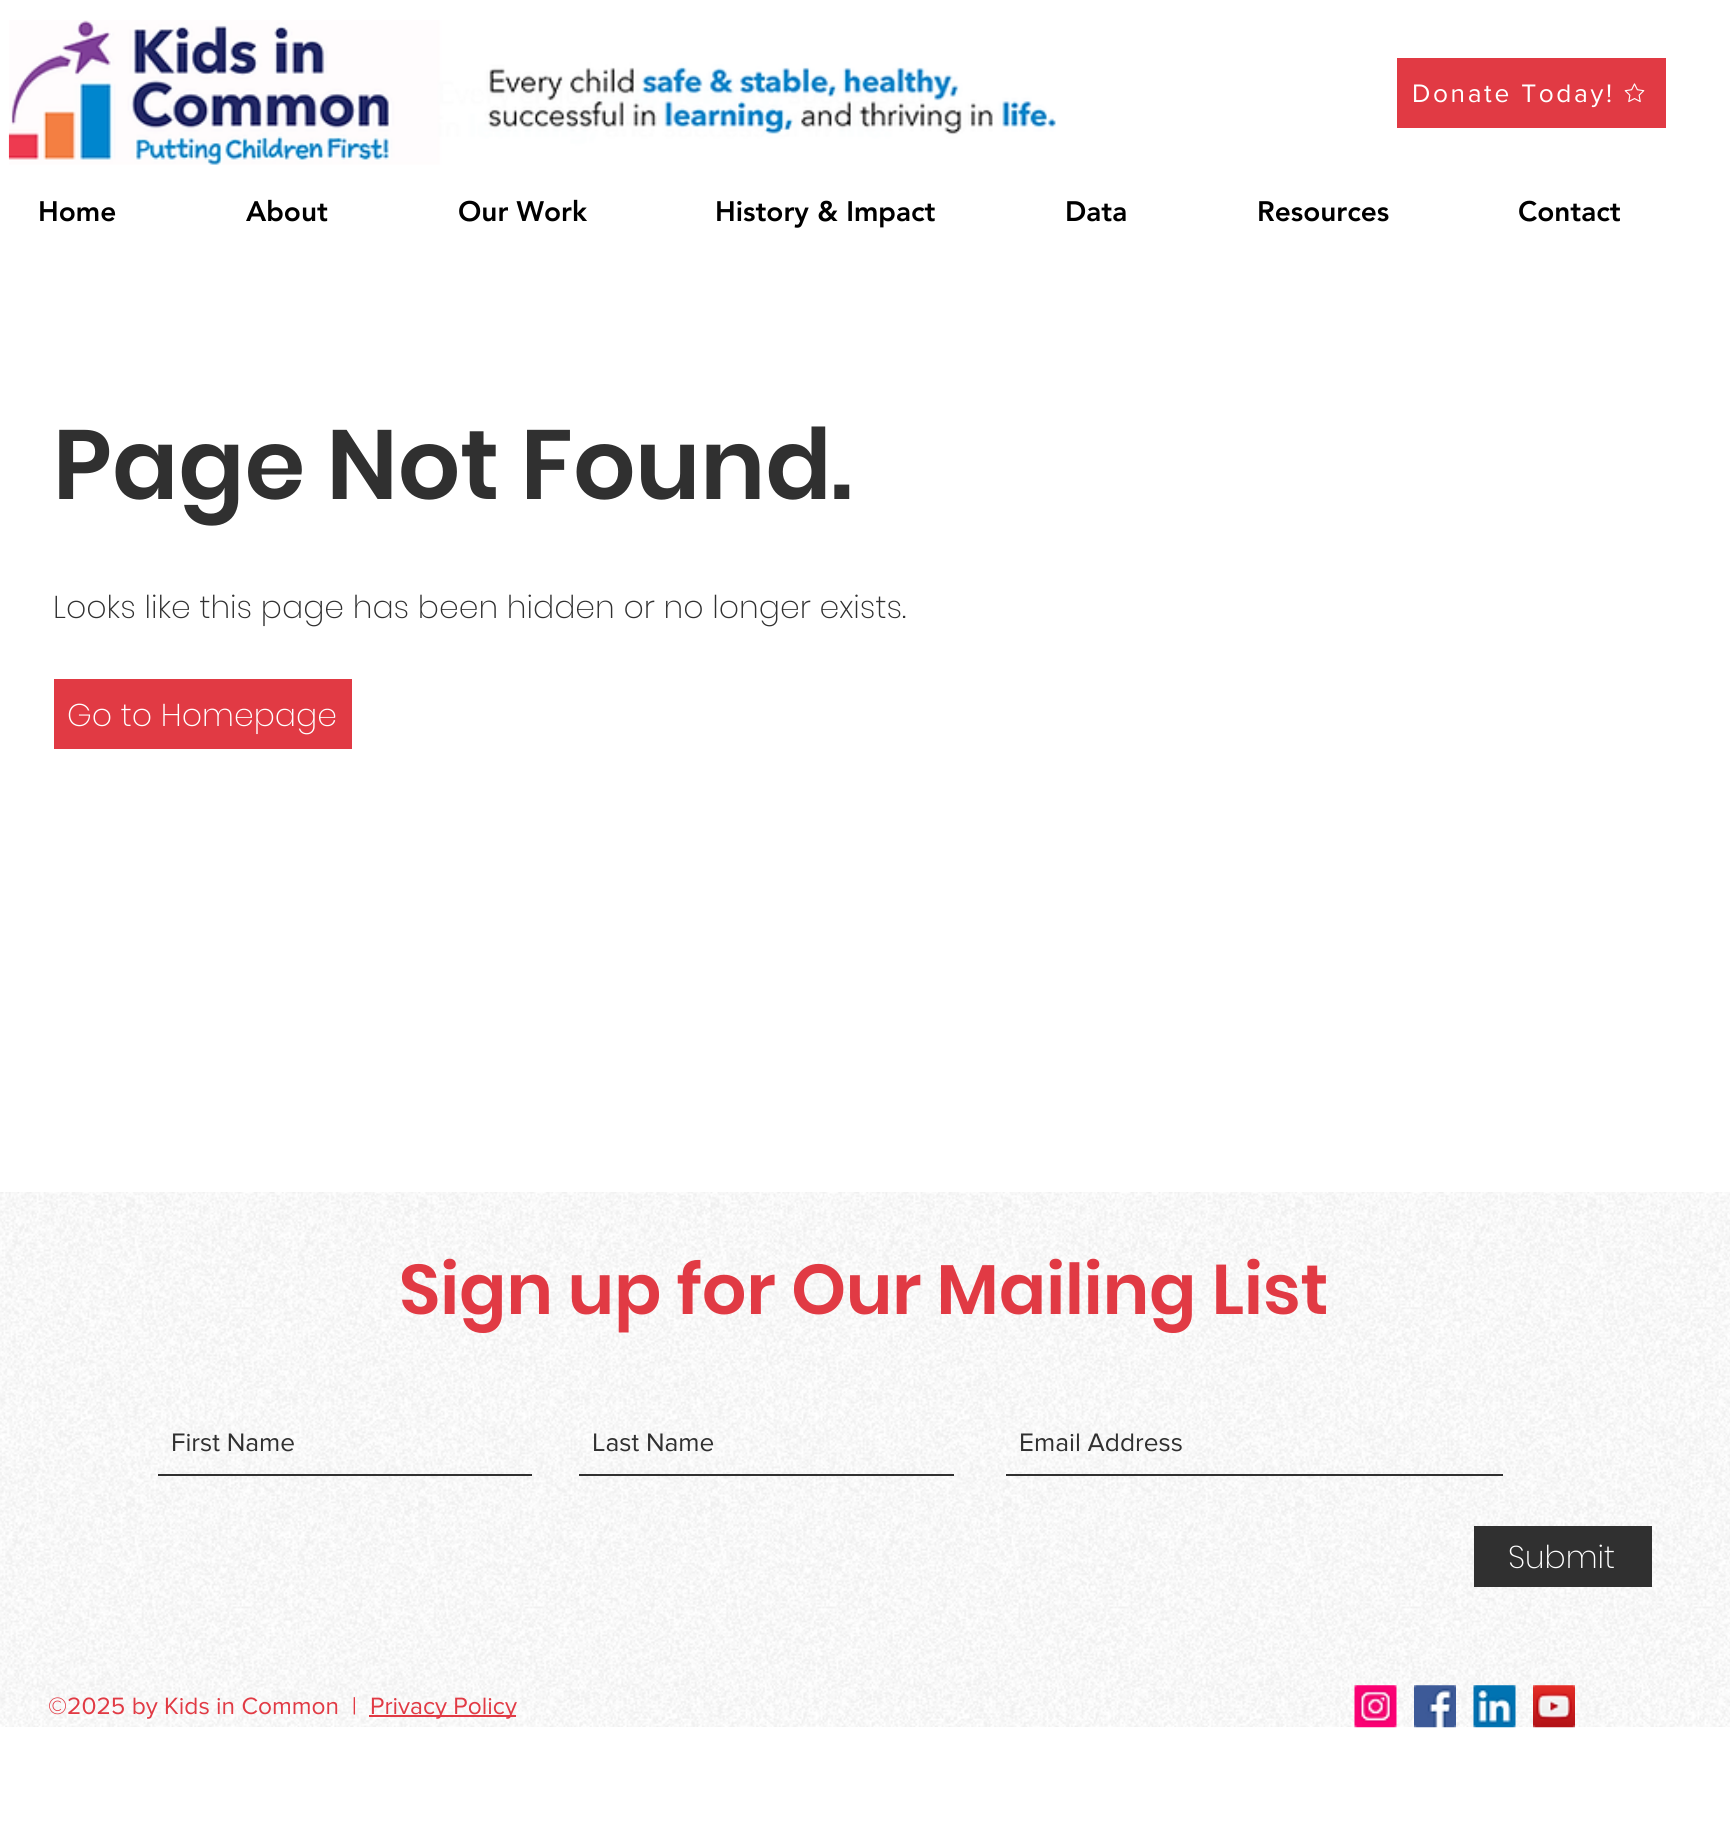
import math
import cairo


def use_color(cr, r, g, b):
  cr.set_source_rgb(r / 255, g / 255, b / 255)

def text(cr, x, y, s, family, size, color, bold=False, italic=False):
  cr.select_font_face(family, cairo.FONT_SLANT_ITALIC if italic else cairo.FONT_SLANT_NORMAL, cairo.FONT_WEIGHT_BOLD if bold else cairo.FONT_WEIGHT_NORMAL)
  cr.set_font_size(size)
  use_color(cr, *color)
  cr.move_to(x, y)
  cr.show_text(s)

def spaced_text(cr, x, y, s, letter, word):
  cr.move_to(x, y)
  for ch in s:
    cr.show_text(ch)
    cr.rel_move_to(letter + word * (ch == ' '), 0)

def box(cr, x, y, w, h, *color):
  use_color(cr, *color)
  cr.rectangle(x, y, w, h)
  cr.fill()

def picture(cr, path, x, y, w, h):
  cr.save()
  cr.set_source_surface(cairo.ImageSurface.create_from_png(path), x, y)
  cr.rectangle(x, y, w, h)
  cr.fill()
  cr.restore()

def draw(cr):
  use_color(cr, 255, 255, 255)
  cr.paint()
  picture(cr, "img_01.png", 8, 20, 1048, 145)
  box(cr, 1397, 58, 269, 70, 225, 58, 68)
  picture(cr, "img_02.png", 1624, 83, 21, 20)
  box(cr, 54, 679, 298, 70, 225, 58, 68)
  picture(cr, "img_03.png", 0, 1192, 1730, 535)
  box(cr, 158, 1474, 374, 2, 48, 48, 48)
  box(cr, 579, 1474, 375, 2, 48, 48, 48)
  box(cr, 1006, 1474, 497, 2, 48, 48, 48)
  box(cr, 1474, 1526, 178, 61, 48, 48, 48)
  box(cr, 369, 1715, 147, 2, 225, 58, 68)
  picture(cr, "img_04.png", 1354, 1685, 43, 43)
  picture(cr, "img_05.png", 1414, 1685, 42, 43)
  picture(cr, "img_06.png", 1473, 1685, 43, 43)
  picture(cr, "img_07.png", 1533, 1685, 42, 43)
  cr.select_font_face("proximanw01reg")
  cr.set_font_size(26.25)
  use_color(cr, 255, 255, 255)
  spaced_text(cr, 1412, 102, "Donate Today!", 2.6, 0)
  text(cr, 38, 221, "Home", "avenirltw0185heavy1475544 Black", 28, (0, 0, 0))
  text(cr, 246, 221, "About", "avenirltw0185heavy1475544 Black", 28, (0, 0, 0))
  text(cr, 458, 221, "Our Work", "avenirltw0185heavy1475544 Black", 28, (0, 0, 0))
  text(cr, 715, 221, "History & Impact", "avenirltw0185heavy1475544 Black", 28, (0, 0, 0))
  text(cr, 1065, 221, "Data", "avenirltw0185heavy1475544 Black", 28, (0, 0, 0))
  text(cr, 1257, 221, "Resources", "avenirltw0185heavy1475544 Black", 28, (0, 0, 0))
  text(cr, 1518, 221, "Contact", "avenirltw0185heavy1475544 Black", 28, (0, 0, 0))
  text(cr, 53, 499, "Page Not Found.", "Poppins SemiBold", 98, (48, 48, 48))
  text(cr, 53, 618, "Looks like this page has been hidden or no longer exists.", "Poppins ExtraLight", 31.5, (48, 48, 48))
  text(cr, 67, 726, "Go to Homepage", "Poppins ExtraLight", 31.5, (255, 255, 255))
  text(cr, 399, 1314, "Sign up for Our Mailing List", "Poppins SemiBold", 70, (225, 58, 68))
  text(cr, 171, 1451, "First Name", "proximanw01reg", 26.25, (48, 48, 48))
  text(cr, 592, 1451, "Last Name", "proximanw01reg", 26.25, (48, 48, 48))
  text(cr, 1019, 1451, "Email Address", "proximanw01reg", 26.25, (48, 48, 48))
  text(cr, 1508, 1568, "Submit", "Poppins ExtraLight", 31.5, (255, 255, 255))
  text(cr, 48, 1714, "©2025 by Kids in Common  |", "proximanw01reg", 24.5, (225, 58, 68))
  text(cr, 370, 1714, "Privacy Policy", "proximanw01reg", 24.5, (225, 58, 68))


surface = cairo.ImageSurface(cairo.FORMAT_RGB24, 1730, 1827)
cr = cairo.Context(surface)
options = cairo.FontOptions()
options.set_hint_metrics(cairo.HINT_METRICS_OFF)
options.set_hint_style(cairo.HINT_STYLE_NONE)
cr.set_font_options(options)
cr.set_miter_limit(4)
draw(cr)
surface.write_to_png("out.png")
